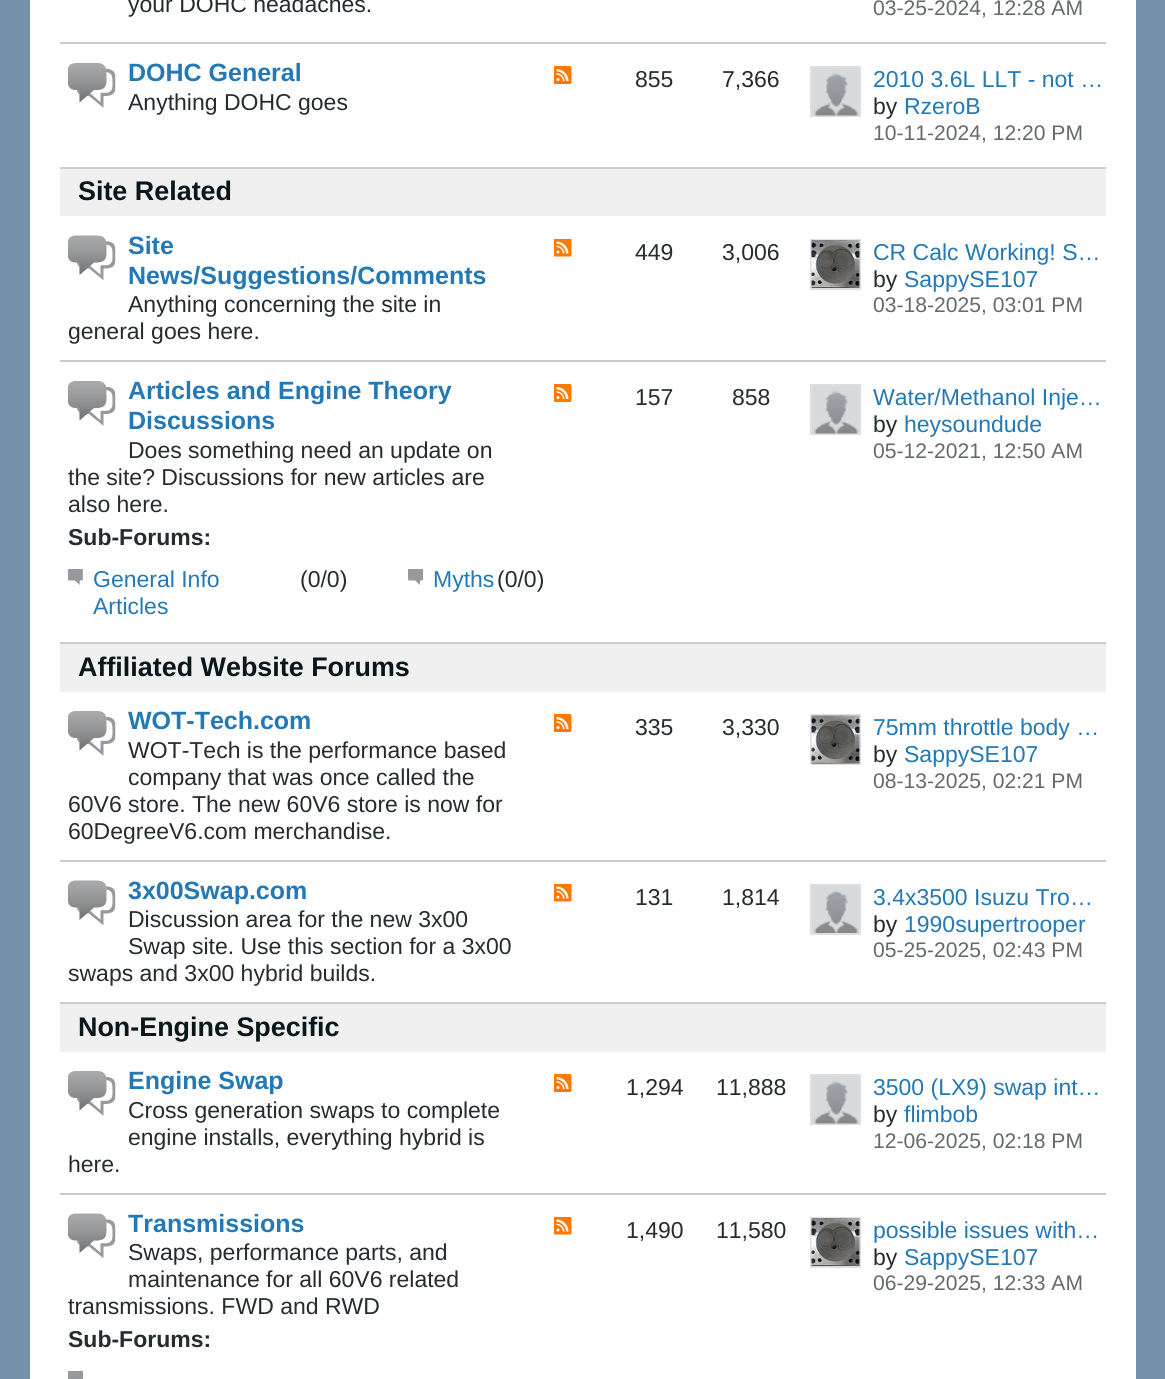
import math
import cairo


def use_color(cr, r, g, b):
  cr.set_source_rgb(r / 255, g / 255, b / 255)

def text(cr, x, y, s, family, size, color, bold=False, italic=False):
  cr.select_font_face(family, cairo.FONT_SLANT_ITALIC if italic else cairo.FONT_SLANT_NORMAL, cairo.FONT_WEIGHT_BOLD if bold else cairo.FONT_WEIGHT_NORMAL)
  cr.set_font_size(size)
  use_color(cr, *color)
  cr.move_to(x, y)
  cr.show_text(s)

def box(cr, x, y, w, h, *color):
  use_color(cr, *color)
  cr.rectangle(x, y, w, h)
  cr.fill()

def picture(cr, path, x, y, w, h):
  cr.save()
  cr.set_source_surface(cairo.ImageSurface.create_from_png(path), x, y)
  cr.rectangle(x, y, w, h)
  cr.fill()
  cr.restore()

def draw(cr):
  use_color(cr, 113, 146, 168)
  cr.paint()
  box(cr, 30, 0, 1106, 1379, 255, 255, 255)
  box(cr, 60, 42, 1046, 2, 200, 204, 206)
  picture(cr, "img_01.png", 68, 63, 48, 45)
  picture(cr, "img_02.png", 554, 66, 18, 18)
  cr.rectangle(811, 67, 49, 49)
  use_color(cr, 223, 223, 223)
  cr.stroke()
  picture(cr, "img_03.png", 811, 67, 49, 49)
  box(cr, 60, 169, 1046, 47, 240, 240, 240)
  box(cr, 60, 167, 1046, 2, 201, 206, 210)
  picture(cr, "img_04.png", 68, 235, 48, 45)
  picture(cr, "img_05.png", 554, 239, 18, 18)
  cr.rectangle(811, 240, 49, 49)
  use_color(cr, 223, 223, 223)
  cr.stroke()
  picture(cr, "img_06.png", 811, 240, 49, 48)
  box(cr, 60, 360, 1046, 2, 200, 204, 206)
  picture(cr, "img_07.png", 68, 381, 48, 45)
  picture(cr, "img_02.png", 554, 384, 18, 18)
  cr.rectangle(811, 385, 49, 49)
  use_color(cr, 223, 223, 223)
  cr.stroke()
  picture(cr, "img_03.png", 811, 385, 49, 49)
  picture(cr, "img_08.png", 68, 569, 15, 16)
  picture(cr, "img_09.png", 408, 569, 15, 16)
  box(cr, 60, 644, 1046, 48, 240, 240, 240)
  box(cr, 60, 642, 1046, 2, 201, 206, 210)
  picture(cr, "img_07.png", 68, 711, 48, 45)
  picture(cr, "img_02.png", 554, 714, 18, 18)
  cr.rectangle(811, 715, 49, 49)
  use_color(cr, 223, 223, 223)
  cr.stroke()
  picture(cr, "img_10.png", 811, 715, 49, 49)
  box(cr, 60, 860, 1046, 2, 200, 204, 206)
  picture(cr, "img_04.png", 68, 880, 48, 45)
  picture(cr, "img_05.png", 554, 884, 18, 18)
  cr.rectangle(811, 885, 49, 49)
  use_color(cr, 223, 223, 223)
  cr.stroke()
  picture(cr, "img_11.png", 811, 885, 49, 48)
  box(cr, 60, 1004, 1046, 48, 240, 240, 240)
  box(cr, 60, 1002, 1046, 2, 201, 206, 210)
  picture(cr, "img_12.png", 68, 1071, 48, 45)
  picture(cr, "img_13.png", 554, 1074, 18, 18)
  cr.rectangle(811, 1075, 49, 49)
  use_color(cr, 223, 223, 223)
  cr.stroke()
  picture(cr, "img_03.png", 811, 1075, 49, 49)
  box(cr, 60, 1193, 1046, 2, 200, 204, 206)
  picture(cr, "img_04.png", 68, 1213, 48, 45)
  picture(cr, "img_05.png", 554, 1217, 18, 18)
  cr.rectangle(811, 1218, 49, 49)
  use_color(cr, 223, 223, 223)
  cr.stroke()
  picture(cr, "img_14.png", 811, 1218, 49, 48)
  box(cr, 68, 1371, 15, 8, 150, 153, 157)
  text(cr, 128, 12, "your DOHC headaches.", "Liberation Sans", 23, (37, 44, 47))
  text(cr, 873, 15, "03-25-2024, 12:28 AM", "Liberation Sans", 21.1, (101, 106, 109))
  text(cr, 128, 81, "DOHC General", "Liberation Sans", 25, (35, 121, 181), bold=True)
  text(cr, 128, 110, "Anything DOHC goes", "Liberation Sans", 23, (37, 44, 47))
  text(cr, 635, 87, "855", "Liberation Sans", 23, (37, 44, 47))
  text(cr, 722, 87, "7,366", "Liberation Sans", 23, (37, 44, 47))
  text(cr, 873, 87, "2010 3.6L LLT - not …", "Liberation Sans", 23, (35, 121, 181))
  text(cr, 873, 114, "by", "Liberation Sans", 23, (37, 44, 47))
  text(cr, 904, 114, "RzeroB", "Liberation Sans", 23, (35, 121, 181))
  text(cr, 873, 140, "10-11-2024, 12:20 PM", "Liberation Sans", 21.1, (101, 106, 109))
  text(cr, 78, 200, "Site Related", "Liberation Sans", 26.9, (9, 22, 27), bold=True)
  text(cr, 128, 254, "Site", "Liberation Sans", 25, (35, 121, 181), bold=True)
  text(cr, 128, 284, "News/Suggestions/Comments", "Liberation Sans", 25, (35, 121, 181), bold=True)
  text(cr, 128, 312, "Anything concerning the site in", "Liberation Sans", 23, (37, 44, 47))
  text(cr, 68, 339, "general goes here.", "Liberation Sans", 23, (37, 44, 47))
  text(cr, 635, 260, "449", "Liberation Sans", 23, (37, 44, 47))
  text(cr, 722, 260, "3,006", "Liberation Sans", 23, (37, 44, 47))
  text(cr, 873, 260, "CR Calc Working! S…", "Liberation Sans", 23, (35, 121, 181))
  text(cr, 873, 287, "by", "Liberation Sans", 23, (37, 44, 47))
  text(cr, 904, 287, "SappySE107", "Liberation Sans", 23, (35, 121, 181))
  text(cr, 873, 312, "03-18-2025, 03:01 PM", "Liberation Sans", 21.1, (101, 106, 109))
  text(cr, 128, 399, "Articles and Engine Theory", "Liberation Sans", 25, (35, 121, 181), bold=True)
  text(cr, 128, 429, "Discussions", "Liberation Sans", 25, (35, 121, 181), bold=True)
  text(cr, 128, 458, "Does something need an update on", "Liberation Sans", 23, (37, 44, 47))
  text(cr, 68, 485, "the site? Discussions for new articles are", "Liberation Sans", 23, (37, 44, 47))
  text(cr, 68, 512, "also here.", "Liberation Sans", 23, (37, 44, 47))
  text(cr, 635, 405, "157", "Liberation Sans", 23, (37, 44, 47))
  text(cr, 732, 405, "858", "Liberation Sans", 23, (37, 44, 47))
  text(cr, 873, 405, "Water/Methanol Inje…", "Liberation Sans", 23, (35, 121, 181))
  text(cr, 873, 432, "by", "Liberation Sans", 23, (37, 44, 47))
  text(cr, 904, 432, "heysoundude", "Liberation Sans", 23, (35, 121, 181))
  text(cr, 873, 458, "05-12-2021, 12:50 AM", "Liberation Sans", 21.1, (101, 106, 109))
  text(cr, 68, 545, "Sub-Forums:", "Liberation Sans", 23, (37, 44, 47), bold=True)
  text(cr, 93, 587, "General Info", "Liberation Sans", 23, (35, 121, 181))
  text(cr, 93, 614, "Articles", "Liberation Sans", 23, (35, 121, 181))
  text(cr, 300, 587, "(0/0)", "Liberation Sans", 23, (37, 44, 47))
  text(cr, 433, 587, "Myths", "Liberation Sans", 23, (35, 121, 181))
  text(cr, 497, 587, "(0/0)", "Liberation Sans", 23, (37, 44, 47))
  text(cr, 78, 676, "Affiliated Website Forums", "Liberation Sans", 26.9, (9, 22, 27), bold=True)
  text(cr, 128, 729, "WOT-Tech.com", "Liberation Sans", 25, (35, 121, 181), bold=True)
  text(cr, 128, 758, "WOT-Tech is the performance based", "Liberation Sans", 23, (37, 44, 47))
  text(cr, 128, 785, "company that was once called the", "Liberation Sans", 23, (37, 44, 47))
  text(cr, 68, 812, "60V6 store. The new 60V6 store is now for", "Liberation Sans", 23, (37, 44, 47))
  text(cr, 68, 839, "60DegreeV6.com merchandise.", "Liberation Sans", 23, (37, 44, 47))
  text(cr, 635, 735, "335", "Liberation Sans", 23, (37, 44, 47))
  text(cr, 722, 735, "3,330", "Liberation Sans", 23, (37, 44, 47))
  text(cr, 873, 735, "75mm throttle body …", "Liberation Sans", 23, (35, 121, 181))
  text(cr, 873, 762, "by", "Liberation Sans", 23, (37, 44, 47))
  text(cr, 904, 762, "SappySE107", "Liberation Sans", 23, (35, 121, 181))
  text(cr, 873, 788, "08-13-2025, 02:21 PM", "Liberation Sans", 21.1, (101, 106, 109))
  text(cr, 128, 899, "3x00Swap.com", "Liberation Sans", 25, (35, 121, 181), bold=True)
  text(cr, 128, 927, "Discussion area for the new 3x00", "Liberation Sans", 23, (37, 44, 47))
  text(cr, 128, 954, "Swap site. Use this section for a 3x00", "Liberation Sans", 23, (37, 44, 47))
  text(cr, 68, 981, "swaps and 3x00 hybrid builds.", "Liberation Sans", 23, (37, 44, 47))
  text(cr, 635, 905, "131", "Liberation Sans", 23, (37, 44, 47))
  text(cr, 722, 905, "1,814", "Liberation Sans", 23, (37, 44, 47))
  text(cr, 873, 905, "3.4x3500 Isuzu Tro…", "Liberation Sans", 23, (35, 121, 181))
  text(cr, 873, 932, "by", "Liberation Sans", 23, (37, 44, 47))
  text(cr, 904, 932, "1990supertrooper", "Liberation Sans", 23, (35, 121, 181))
  text(cr, 873, 957, "05-25-2025, 02:43 PM", "Liberation Sans", 21.1, (101, 106, 109))
  text(cr, 78, 1036, "Non-Engine Specific", "Liberation Sans", 26.9, (9, 22, 27), bold=True)
  text(cr, 128, 1089, "Engine Swap", "Liberation Sans", 25, (35, 121, 181), bold=True)
  text(cr, 128, 1118, "Cross generation swaps to complete", "Liberation Sans", 23, (37, 44, 47))
  text(cr, 128, 1145, "engine installs, everything hybrid is", "Liberation Sans", 23, (37, 44, 47))
  text(cr, 68, 1172, "here.", "Liberation Sans", 23, (37, 44, 47))
  text(cr, 626, 1095, "1,294", "Liberation Sans", 23, (37, 44, 47))
  text(cr, 716, 1095, "11,888", "Liberation Sans", 23, (37, 44, 47))
  text(cr, 873, 1095, "3500 (LX9) swap int…", "Liberation Sans", 23, (35, 121, 181))
  text(cr, 873, 1122, "by", "Liberation Sans", 23, (37, 44, 47))
  text(cr, 904, 1122, "flimbob", "Liberation Sans", 23, (35, 121, 181))
  text(cr, 873, 1148, "12-06-2025, 02:18 PM", "Liberation Sans", 21.1, (101, 106, 109))
  text(cr, 128, 1232, "Transmissions", "Liberation Sans", 25, (35, 121, 181), bold=True)
  text(cr, 128, 1260, "Swaps, performance parts, and", "Liberation Sans", 23, (37, 44, 47))
  text(cr, 128, 1287, "maintenance for all 60V6 related", "Liberation Sans", 23, (37, 44, 47))
  text(cr, 68, 1314, "transmissions. FWD and RWD", "Liberation Sans", 23, (37, 44, 47))
  text(cr, 626, 1238, "1,490", "Liberation Sans", 23, (37, 44, 47))
  text(cr, 716, 1238, "11,580", "Liberation Sans", 23, (37, 44, 47))
  text(cr, 873, 1238, "possible issues with…", "Liberation Sans", 23, (35, 121, 181))
  text(cr, 873, 1265, "by", "Liberation Sans", 23, (37, 44, 47))
  text(cr, 904, 1265, "SappySE107", "Liberation Sans", 23, (35, 121, 181))
  text(cr, 873, 1290, "06-29-2025, 12:33 AM", "Liberation Sans", 21.1, (101, 106, 109))
  text(cr, 68, 1347, "Sub-Forums:", "Liberation Sans", 23, (37, 44, 47), bold=True)


surface = cairo.ImageSurface(cairo.FORMAT_RGB24, 1165, 1379)
cr = cairo.Context(surface)
options = cairo.FontOptions()
options.set_hint_metrics(cairo.HINT_METRICS_OFF)
options.set_hint_style(cairo.HINT_STYLE_NONE)
cr.set_font_options(options)
cr.set_miter_limit(4)
draw(cr)
surface.write_to_png("out.png")
